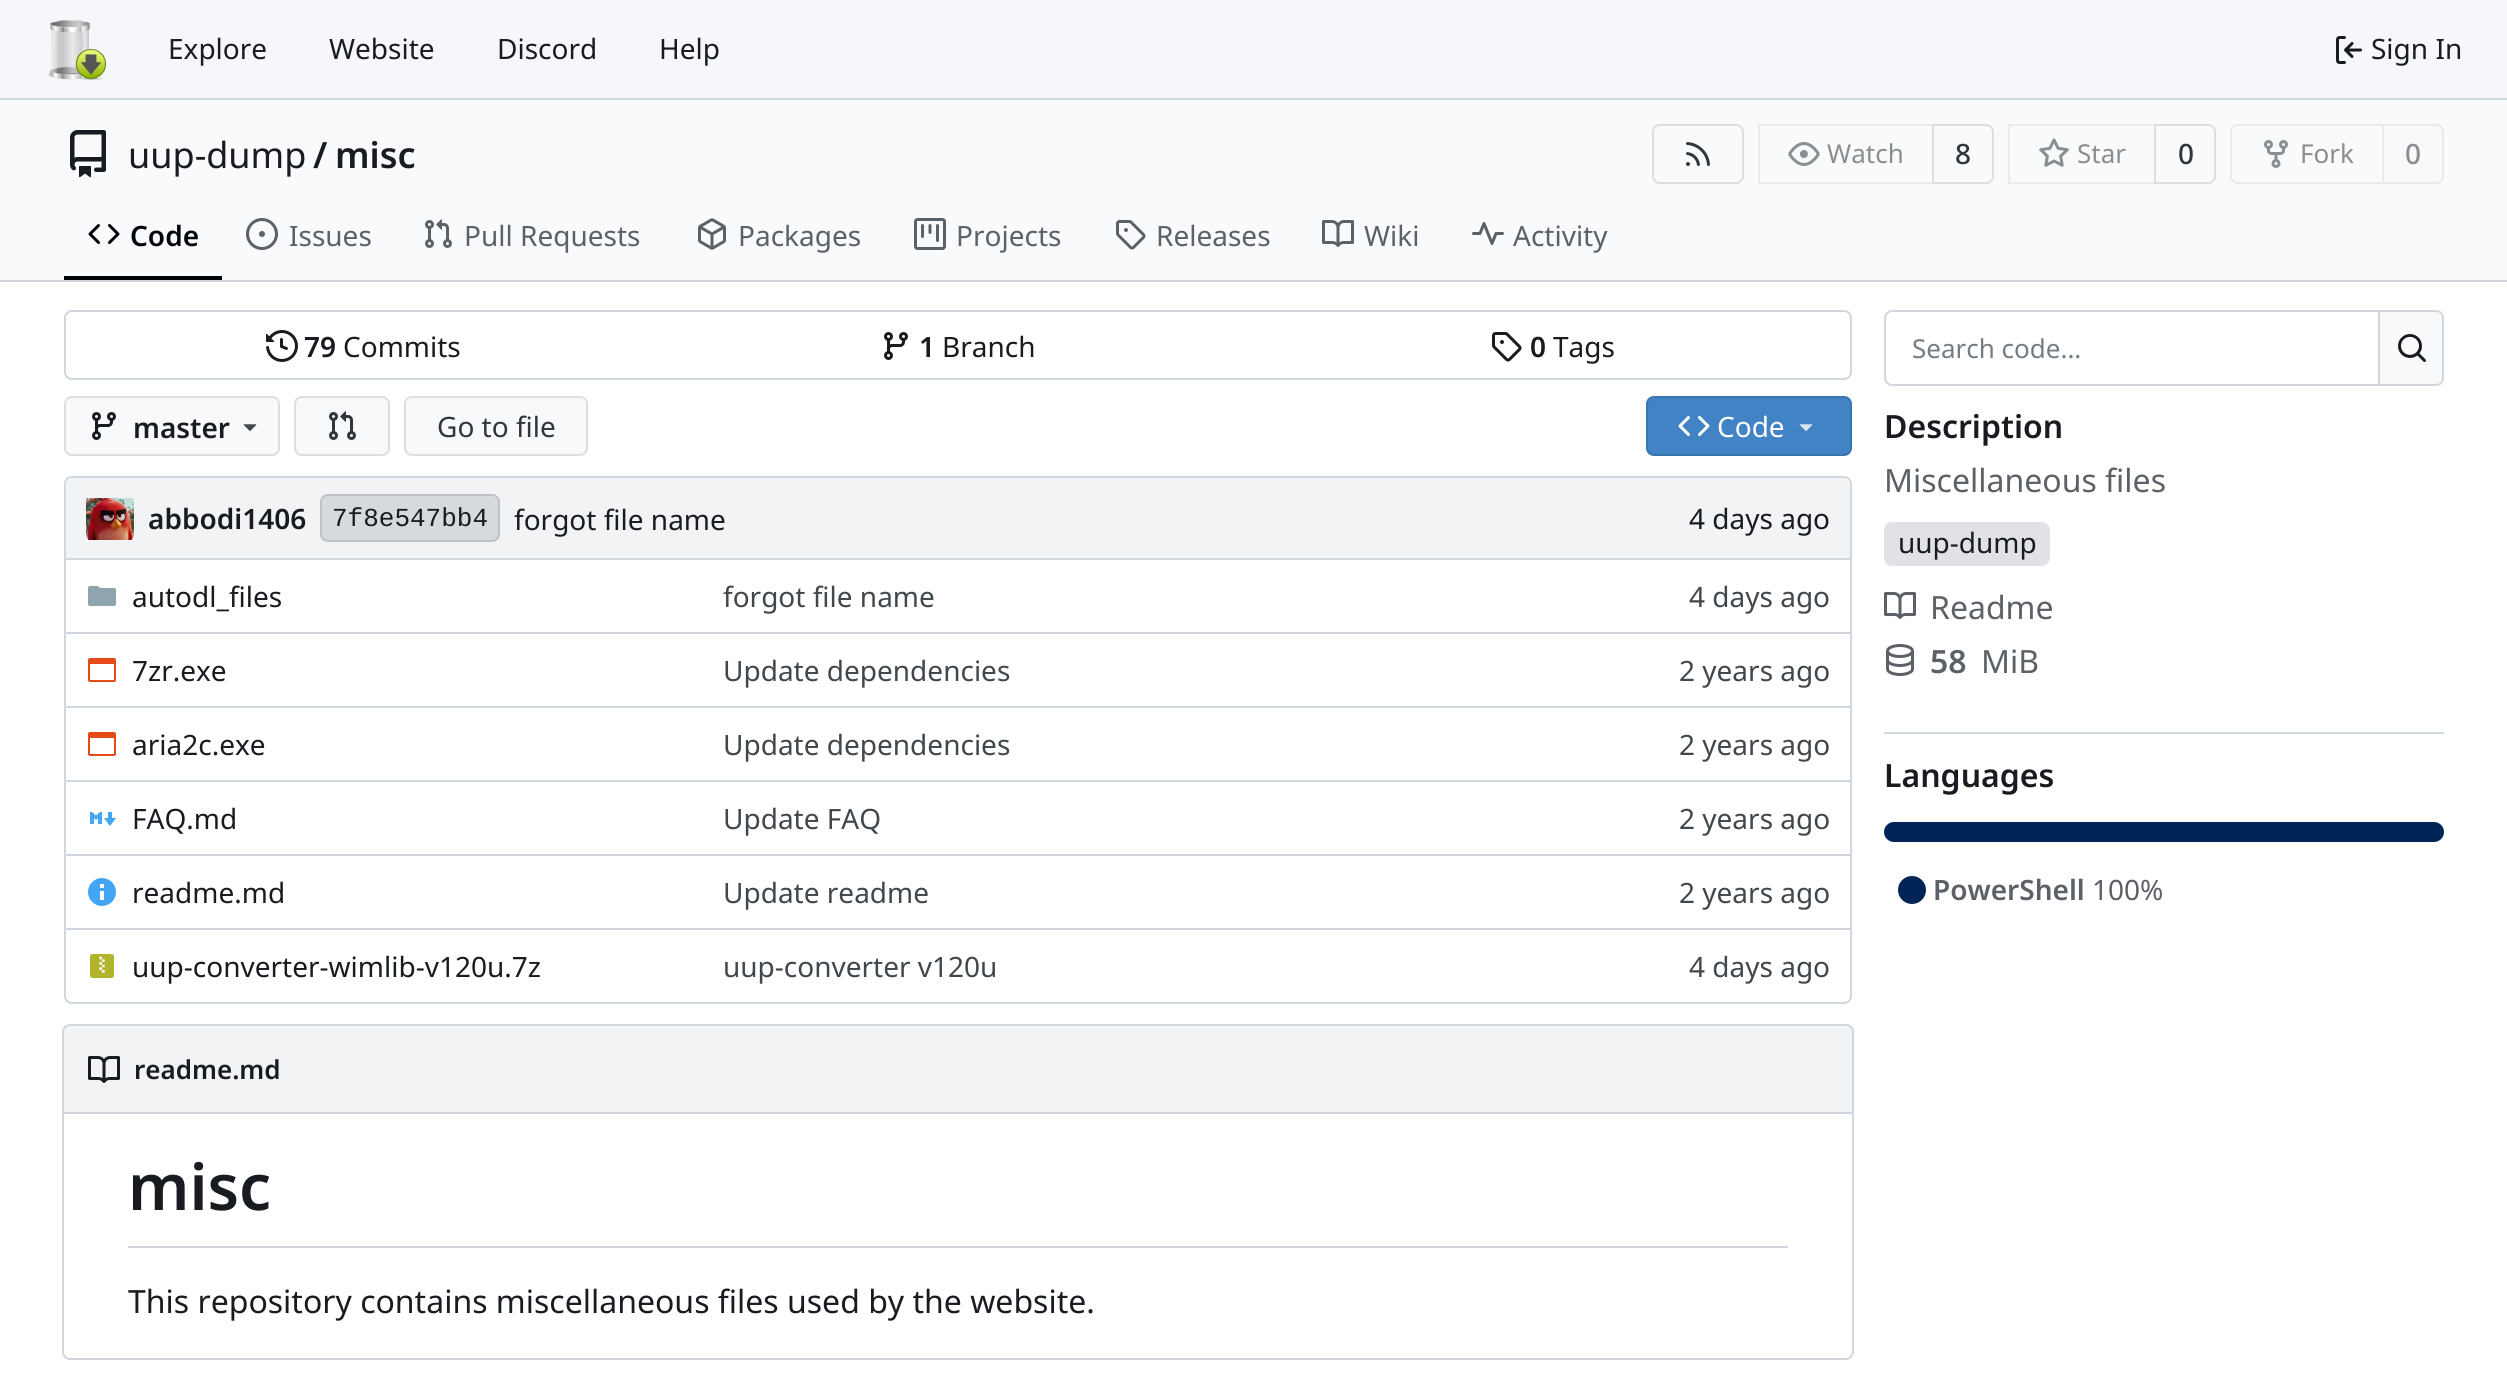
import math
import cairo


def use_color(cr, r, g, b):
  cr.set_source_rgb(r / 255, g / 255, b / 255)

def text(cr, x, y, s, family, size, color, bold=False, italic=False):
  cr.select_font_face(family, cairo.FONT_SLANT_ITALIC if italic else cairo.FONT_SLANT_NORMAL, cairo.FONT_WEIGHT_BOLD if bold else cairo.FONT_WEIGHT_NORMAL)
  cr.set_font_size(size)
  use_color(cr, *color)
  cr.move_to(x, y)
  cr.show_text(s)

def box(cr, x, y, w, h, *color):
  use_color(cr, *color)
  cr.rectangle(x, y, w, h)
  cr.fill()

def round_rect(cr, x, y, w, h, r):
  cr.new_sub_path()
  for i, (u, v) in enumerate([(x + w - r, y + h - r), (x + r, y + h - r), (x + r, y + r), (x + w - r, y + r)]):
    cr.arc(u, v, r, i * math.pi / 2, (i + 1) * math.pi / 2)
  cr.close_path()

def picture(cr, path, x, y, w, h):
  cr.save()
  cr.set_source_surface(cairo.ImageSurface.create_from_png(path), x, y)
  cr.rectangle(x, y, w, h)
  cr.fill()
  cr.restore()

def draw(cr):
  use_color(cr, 255, 255, 255)
  cr.paint()
  box(cr, 0, 0, 2507, 98, 246, 247, 250)
  box(cr, 0, 98, 2507, 2, 208, 215, 222)
  picture(cr, "img_01.png", 47, 20, 59, 60)
  picture(cr, "img_02.png", 2336, 36, 26, 28)
  box(cr, 0, 100, 2507, 180, 249, 250, 251)
  picture(cr, "img_03.png", 70, 130, 36, 48)
  round_rect(cr, 1653, 125, 90, 58, 7)
  use_color(cr, 221, 222, 225)
  cr.stroke()
  picture(cr, "img_04.png", 1686, 142, 24, 24)
  cr.new_path()
  cr.move_to(1933, 125)
  cr.line_to(1986, 125)
  cr.curve_to(1990, 125, 1993, 128, 1993, 132)
  cr.line_to(1993, 176)
  cr.curve_to(1993, 180, 1990, 183, 1986, 183)
  cr.line_to(1933, 183)
  cr.close_path()
  cr.stroke()
  cr.set_source_rgba(0.973, 0.976, 0.984, 0.55)
  cr.new_path()
  cr.move_to(1766, 124)
  cr.line_to(1934, 124)
  cr.line_to(1934, 184)
  cr.line_to(1766, 184)
  cr.curve_to(1761.5, 184, 1758, 180.5, 1758, 176)
  cr.line_to(1758, 132)
  cr.curve_to(1758, 127.5, 1761.5, 124, 1766, 124)
  cr.close_path()
  cr.fill()
  cr.rectangle(1759, 125, 174, 58)
  cr.set_source_rgba(0, 0, 0.09, 0.06)
  cr.stroke()
  picture(cr, "img_05.png", 1788, 142, 32, 24)
  cr.new_path()
  cr.move_to(2155, 125)
  cr.line_to(2208, 125)
  cr.curve_to(2212, 125, 2215, 128, 2215, 132)
  cr.line_to(2215, 176)
  cr.curve_to(2215, 180, 2212, 183, 2208, 183)
  cr.line_to(2155, 183)
  cr.close_path()
  use_color(cr, 221, 222, 225)
  cr.stroke()
  cr.set_source_rgba(0.973, 0.976, 0.984, 0.55)
  cr.new_path()
  cr.move_to(2016, 124)
  cr.line_to(2156, 124)
  cr.line_to(2156, 184)
  cr.line_to(2016, 184)
  cr.curve_to(2011.5, 184, 2008, 180.5, 2008, 176)
  cr.line_to(2008, 132)
  cr.curve_to(2008, 127.5, 2011.5, 124, 2016, 124)
  cr.close_path()
  cr.fill()
  cr.rectangle(2009, 125, 146, 58)
  cr.set_source_rgba(0, 0, 0.09, 0.06)
  cr.stroke()
  picture(cr, "img_06.png", 2039, 138, 30, 29)
  cr.new_path()
  cr.move_to(2238, 125)
  cr.line_to(2383, 125)
  cr.line_to(2383, 183)
  cr.line_to(2238, 183)
  cr.curve_to(2234, 183, 2231, 180, 2231, 176)
  cr.line_to(2231, 132)
  cr.curve_to(2231, 128, 2234, 125, 2238, 125)
  cr.close_path()
  use_color(cr, 233, 234, 237)
  cr.stroke()
  picture(cr, "img_07.png", 2264, 140, 24, 28)
  use_color(cr, 248, 249, 251)
  cr.new_path()
  cr.move_to(2383, 125)
  cr.line_to(2436, 125)
  cr.curve_to(2440, 125, 2443, 128, 2443, 132)
  cr.line_to(2443, 176)
  cr.curve_to(2443, 180, 2440, 183, 2436, 183)
  cr.line_to(2383, 183)
  cr.close_path()
  cr.fill_preserve()
  use_color(cr, 233, 234, 237)
  cr.stroke()
  box(cr, 64, 276, 158, 4, 1, 5, 10)
  picture(cr, "img_08.png", 88, 224, 32, 20)
  picture(cr, "img_09.png", 246, 218, 32, 32)
  picture(cr, "img_10.png", 425, 219, 27, 29)
  picture(cr, "img_11.png", 698, 218, 28, 32)
  picture(cr, "img_12.png", 914, 218, 32, 32)
  picture(cr, "img_13.png", 1116, 220, 30, 30)
  picture(cr, "img_14.png", 1322, 220, 32, 27)
  picture(cr, "img_15.png", 1472, 222, 32, 23)
  box(cr, 0, 280, 2507, 2, 208, 215, 222)
  round_rect(cr, 65, 311, 1786, 68, 7)
  cr.stroke()
  picture(cr, "img_16.png", 266, 330, 32, 32)
  picture(cr, "img_17.png", 884, 332, 24, 28)
  picture(cr, "img_18.png", 1492, 332, 30, 30)
  use_color(cr, 248, 249, 251)
  round_rect(cr, 64, 396, 216, 60, 8)
  cr.fill()
  round_rect(cr, 65, 397, 214, 58, 7)
  cr.set_source_rgba(0, 0, 0.09, 0.11)
  cr.stroke()
  picture(cr, "img_19.png", 92, 412, 24, 28)
  picture(cr, "img_20.png", 243, 424, 14, 7)
  use_color(cr, 248, 249, 251)
  round_rect(cr, 294, 396, 96, 60, 8)
  cr.fill()
  round_rect(cr, 295, 397, 94, 58, 7)
  cr.set_source_rgba(0, 0, 0.09, 0.11)
  cr.stroke()
  picture(cr, "img_21.png", 329, 411, 27, 29)
  use_color(cr, 248, 249, 251)
  round_rect(cr, 404, 396, 184, 60, 8)
  cr.fill()
  round_rect(cr, 405, 397, 182, 58, 7)
  cr.set_source_rgba(0, 0, 0.09, 0.11)
  cr.stroke()
  use_color(cr, 65, 131, 196)
  round_rect(cr, 1646, 396, 206, 60, 8)
  cr.fill()
  round_rect(cr, 1647, 397, 204, 58, 7)
  cr.set_source_rgba(0, 0, 0.09, 0.11)
  cr.stroke()
  picture(cr, "img_22.png", 1678, 416, 32, 20)
  picture(cr, "img_23.png", 1799, 424, 14, 7)
  round_rect(cr, 65, 477, 1786, 526, 7)
  use_color(cr, 208, 215, 222)
  cr.stroke()
  use_color(cr, 241, 243, 245)
  cr.new_path()
  cr.move_to(74, 478)
  cr.line_to(1842, 478)
  cr.curve_to(1846.5, 478, 1850, 481.5, 1850, 486)
  cr.line_to(1850, 558)
  cr.line_to(66, 558)
  cr.line_to(66, 486)
  cr.curve_to(66, 481.5, 69.5, 478, 74, 478)
  cr.close_path()
  cr.fill()
  picture(cr, "img_24.png", 86, 498, 48, 42)
  use_color(cr, 214, 218, 222)
  round_rect(cr, 320, 494, 180, 48, 8)
  cr.fill()
  round_rect(cr, 321, 495, 178, 46, 7)
  cr.set_source_rgba(0, 0, 0.09, 0.11)
  cr.stroke()
  box(cr, 66, 558, 1592, 2, 208, 215, 222)
  picture(cr, "img_25.png", 88, 586, 28, 20)
  box(cr, 1658, 558, 192, 2, 208, 215, 222)
  box(cr, 66, 632, 1592, 2, 208, 215, 222)
  picture(cr, "img_26.png", 88, 658, 28, 24)
  box(cr, 1658, 632, 192, 2, 208, 215, 222)
  box(cr, 66, 706, 1592, 2, 208, 215, 222)
  picture(cr, "img_26.png", 88, 732, 28, 24)
  box(cr, 1658, 706, 192, 2, 208, 215, 222)
  box(cr, 66, 780, 1592, 2, 208, 215, 222)
  picture(cr, "img_27.png", 90, 812, 26, 14)
  box(cr, 1658, 780, 192, 2, 208, 215, 222)
  box(cr, 66, 854, 1592, 2, 208, 215, 222)
  picture(cr, "img_28.png", 88, 878, 28, 28)
  box(cr, 1658, 854, 192, 2, 208, 215, 222)
  box(cr, 66, 928, 1592, 2, 208, 215, 222)
  picture(cr, "img_29.png", 90, 954, 24, 24)
  box(cr, 1658, 928, 192, 2, 208, 215, 222)
  use_color(cr, 241, 243, 245)
  cr.new_path()
  cr.move_to(70, 1025)
  cr.line_to(1846, 1025)
  cr.curve_to(1850, 1025, 1853, 1028, 1853, 1032)
  cr.line_to(1853, 1113)
  cr.line_to(63, 1113)
  cr.line_to(63, 1032)
  cr.curve_to(63, 1028, 66, 1025, 70, 1025)
  cr.close_path()
  cr.fill_preserve()
  use_color(cr, 208, 215, 222)
  cr.stroke()
  picture(cr, "img_30.png", 88, 1056, 32, 27)
  cr.set_fill_rule(cairo.FILL_RULE_EVEN_ODD)
  cr.new_path()
  cr.move_to(62, 1114)
  cr.line_to(1854, 1114)
  cr.line_to(1854, 1352)
  cr.curve_to(1854, 1356, 1850, 1360, 1846, 1360)
  cr.line_to(70, 1360)
  cr.curve_to(66, 1360, 62, 1356, 62, 1352)
  cr.close_path()
  cr.move_to(64, 1114)
  cr.line_to(1852, 1114)
  cr.line_to(1852, 1352)
  cr.curve_to(1852, 1355, 1849, 1358, 1846, 1358)
  cr.line_to(70, 1358)
  cr.curve_to(67, 1358, 64, 1355, 64, 1352)
  cr.close_path()
  cr.fill()
  box(cr, 128, 1246, 1660, 2, 208, 215, 222)
  cr.new_path()
  cr.move_to(1892, 310)
  cr.line_to(2378, 310)
  cr.line_to(2378, 386)
  cr.line_to(1892, 386)
  cr.curve_to(1888, 386, 1884, 382, 1884, 378)
  cr.line_to(1884, 318)
  cr.curve_to(1884, 314, 1888, 310, 1892, 310)
  cr.close_path()
  cr.move_to(1892, 312)
  cr.line_to(2378, 312)
  cr.line_to(2378, 384)
  cr.line_to(1892, 384)
  cr.curve_to(1889, 384, 1886, 381, 1886, 378)
  cr.line_to(1886, 318)
  cr.curve_to(1886, 315, 1889, 312, 1892, 312)
  cr.close_path()
  cr.fill()
  use_color(cr, 248, 249, 251)
  cr.new_path()
  cr.move_to(2379, 311)
  cr.line_to(2436, 311)
  cr.curve_to(2440, 311, 2443, 314, 2443, 318)
  cr.line_to(2443, 378)
  cr.curve_to(2443, 382, 2440, 385, 2436, 385)
  cr.line_to(2379, 385)
  cr.close_path()
  cr.fill_preserve()
  use_color(cr, 208, 215, 222)
  cr.stroke()
  picture(cr, "img_31.png", 2398, 334, 28, 28)
  use_color(cr, 224, 226, 229)
  round_rect(cr, 1884, 522, 166, 44, 8)
  cr.fill()
  picture(cr, "img_32.png", 1884, 592, 32, 27)
  picture(cr, "img_33.png", 1886, 644, 28, 32)
  box(cr, 1884, 732, 560, 2, 208, 215, 222)
  use_color(cr, 1, 36, 86)
  round_rect(cr, 1884, 822, 560, 20, 10)
  cr.fill()
  cr.arc(1912, 890, 14, 0, 2 * math.pi)
  cr.fill()
  text(cr, 168, 59, "Explore", "Noto Sans", 28, (24, 28, 33))
  text(cr, 329, 59, "Website", "Noto Sans", 28, (24, 28, 33))
  text(cr, 497, 59, "Discord", "Noto Sans", 28, (24, 28, 33))
  text(cr, 659, 59, "Help", "Noto Sans", 28, (24, 28, 33))
  text(cr, 2371, 59, "Sign In", "Noto Sans", 28, (24, 28, 33))
  text(cr, 128, 168, "uup-dump", "Noto Sans", 36, (24, 28, 33))
  text(cr, 313, 168, "/", "Noto Sans SemiBold", 36, (24, 28, 33))
  text(cr, 335, 168, "misc", "Noto Sans SemiBold", 36, (24, 28, 33))
  text(cr, 1827, 163, "Watch", "Noto Sans", 26, (138, 142, 145))
  text(cr, 1955, 164, "8", "Noto Sans Medium", 28, (48, 54, 59))
  text(cr, 2077, 163, "Star", "Noto Sans", 26, (138, 142, 145))
  text(cr, 2178, 164, "0", "Noto Sans Medium", 28, (48, 54, 59))
  text(cr, 2300, 163, "Fork", "Noto Sans", 26, (138, 142, 145))
  text(cr, 2405, 164, "0", "Noto Sans Medium", 28, (138, 142, 145))
  text(cr, 130, 246, "Code", "Noto Sans SemiBold", 28, (1, 5, 10))
  text(cr, 289, 246, "Issues", "Noto Sans", 28, (91, 97, 103))
  text(cr, 464, 246, "Pull Requests", "Noto Sans", 28, (91, 97, 103))
  text(cr, 738, 246, "Packages", "Noto Sans", 28, (91, 97, 103))
  text(cr, 956, 246, "Projects", "Noto Sans", 28, (91, 97, 103))
  text(cr, 1156, 246, "Releases", "Noto Sans", 28, (91, 97, 103))
  text(cr, 1364, 246, "Wiki", "Noto Sans", 28, (91, 97, 103))
  text(cr, 1513, 246, "Activity", "Noto Sans", 28, (91, 97, 103))
  text(cr, 304, 357, "79", "Noto Sans SemiBold", 28, (24, 28, 33))
  text(cr, 343, 357, "Commits", "Noto Sans", 28, (24, 28, 33))
  text(cr, 919, 357, "1", "Noto Sans SemiBold", 28, (24, 28, 33))
  text(cr, 942, 357, "Branch", "Noto Sans", 28, (24, 28, 33))
  text(cr, 1530, 357, "0", "Noto Sans SemiBold", 28, (24, 28, 33))
  text(cr, 1553, 357, "Tags", "Noto Sans", 28, (24, 28, 33))
  text(cr, 133, 438, "master", "Noto Sans SemiBold", 28, (24, 28, 33))
  text(cr, 437, 437, "Go to file", "Noto Sans", 28, (48, 54, 59))
  text(cr, 1717, 437, "Code", "Noto Sans", 28, (255, 255, 255))
  text(cr, 148, 529, "abbodi1406", "Noto Sans SemiBold", 28, (24, 28, 33))
  text(cr, 332, 526, "7f8e547bb4", "Liberation Mono", 26, (24, 28, 33))
  text(cr, 514, 530, "forgot file name", "Noto Sans", 28, (24, 28, 33))
  text(cr, 1689, 529, "4 days ago", "Noto Sans", 28, (24, 28, 33))
  text(cr, 132, 607, "autodl_files", "Noto Sans", 28, (24, 28, 33))
  text(cr, 723, 607, "forgot file name", "Noto Sans", 28, (64, 71, 77))
  text(cr, 1689, 607, "4 days ago", "Noto Sans", 28, (64, 71, 77))
  text(cr, 132, 681, "7zr.exe", "Noto Sans", 28, (24, 28, 33))
  text(cr, 723, 681, "Update dependencies", "Noto Sans", 28, (64, 71, 77))
  text(cr, 1679, 681, "2 years ago", "Noto Sans", 28, (64, 71, 77))
  text(cr, 132, 755, "aria2c.exe", "Noto Sans", 28, (24, 28, 33))
  text(cr, 723, 755, "Update dependencies", "Noto Sans", 28, (64, 71, 77))
  text(cr, 1679, 755, "2 years ago", "Noto Sans", 28, (64, 71, 77))
  text(cr, 132, 829, "FAQ.md", "Noto Sans", 28, (24, 28, 33))
  text(cr, 723, 829, "Update FAQ", "Noto Sans", 28, (64, 71, 77))
  text(cr, 1679, 829, "2 years ago", "Noto Sans", 28, (64, 71, 77))
  text(cr, 132, 903, "readme.md", "Noto Sans", 28, (24, 28, 33))
  text(cr, 723, 903, "Update readme", "Noto Sans", 28, (64, 71, 77))
  text(cr, 1679, 903, "2 years ago", "Noto Sans", 28, (64, 71, 77))
  text(cr, 132, 977, "uup-converter-wimlib-v120u.7z", "Noto Sans", 28, (24, 28, 33))
  text(cr, 723, 977, "uup-converter v120u", "Noto Sans", 28, (64, 71, 77))
  text(cr, 1689, 977, "4 days ago", "Noto Sans", 28, (64, 71, 77))
  text(cr, 134, 1079, "readme.md", "Noto Sans SemiBold", 26, (24, 28, 33))
  text(cr, 128, 1210, "misc", "Noto Sans SemiBold", 64, (24, 28, 33))
  text(cr, 128, 1313, "This repository contains miscellaneous files used by the website.", "Noto Sans", 32, (24, 28, 33))
  text(cr, 1912, 358, "Search code...", "Noto Sans", 26, (116, 124, 132))
  text(cr, 1884, 438, "Description", "Noto Sans SemiBold", 32, (24, 28, 33))
  text(cr, 1884, 492, "Miscellaneous files", "Noto Sans", 32, (91, 97, 103))
  text(cr, 1898, 553, "uup-dump", "Noto Sans", 28, (24, 28, 33))
  text(cr, 1930, 619, "Readme", "Noto Sans", 32, (91, 97, 103))
  text(cr, 1930, 673, "58", "Noto Sans SemiBold", 32, (91, 97, 103))
  text(cr, 1981, 673, "MiB", "Noto Sans", 32, (91, 97, 103))
  text(cr, 1884, 787, "Languages", "Noto Sans SemiBold", 32, (24, 28, 33))
  text(cr, 1933, 900, "PowerShell", "Noto Sans SemiBold", 28, (91, 97, 103))
  text(cr, 2092, 900, "100%", "Noto Sans", 28, (91, 97, 103))


surface = cairo.ImageSurface(cairo.FORMAT_RGB24, 2507, 1381)
cr = cairo.Context(surface)
options = cairo.FontOptions()
options.set_hint_metrics(cairo.HINT_METRICS_OFF)
options.set_hint_style(cairo.HINT_STYLE_NONE)
cr.set_font_options(options)
cr.set_miter_limit(4)
draw(cr)
surface.write_to_png("out.png")
